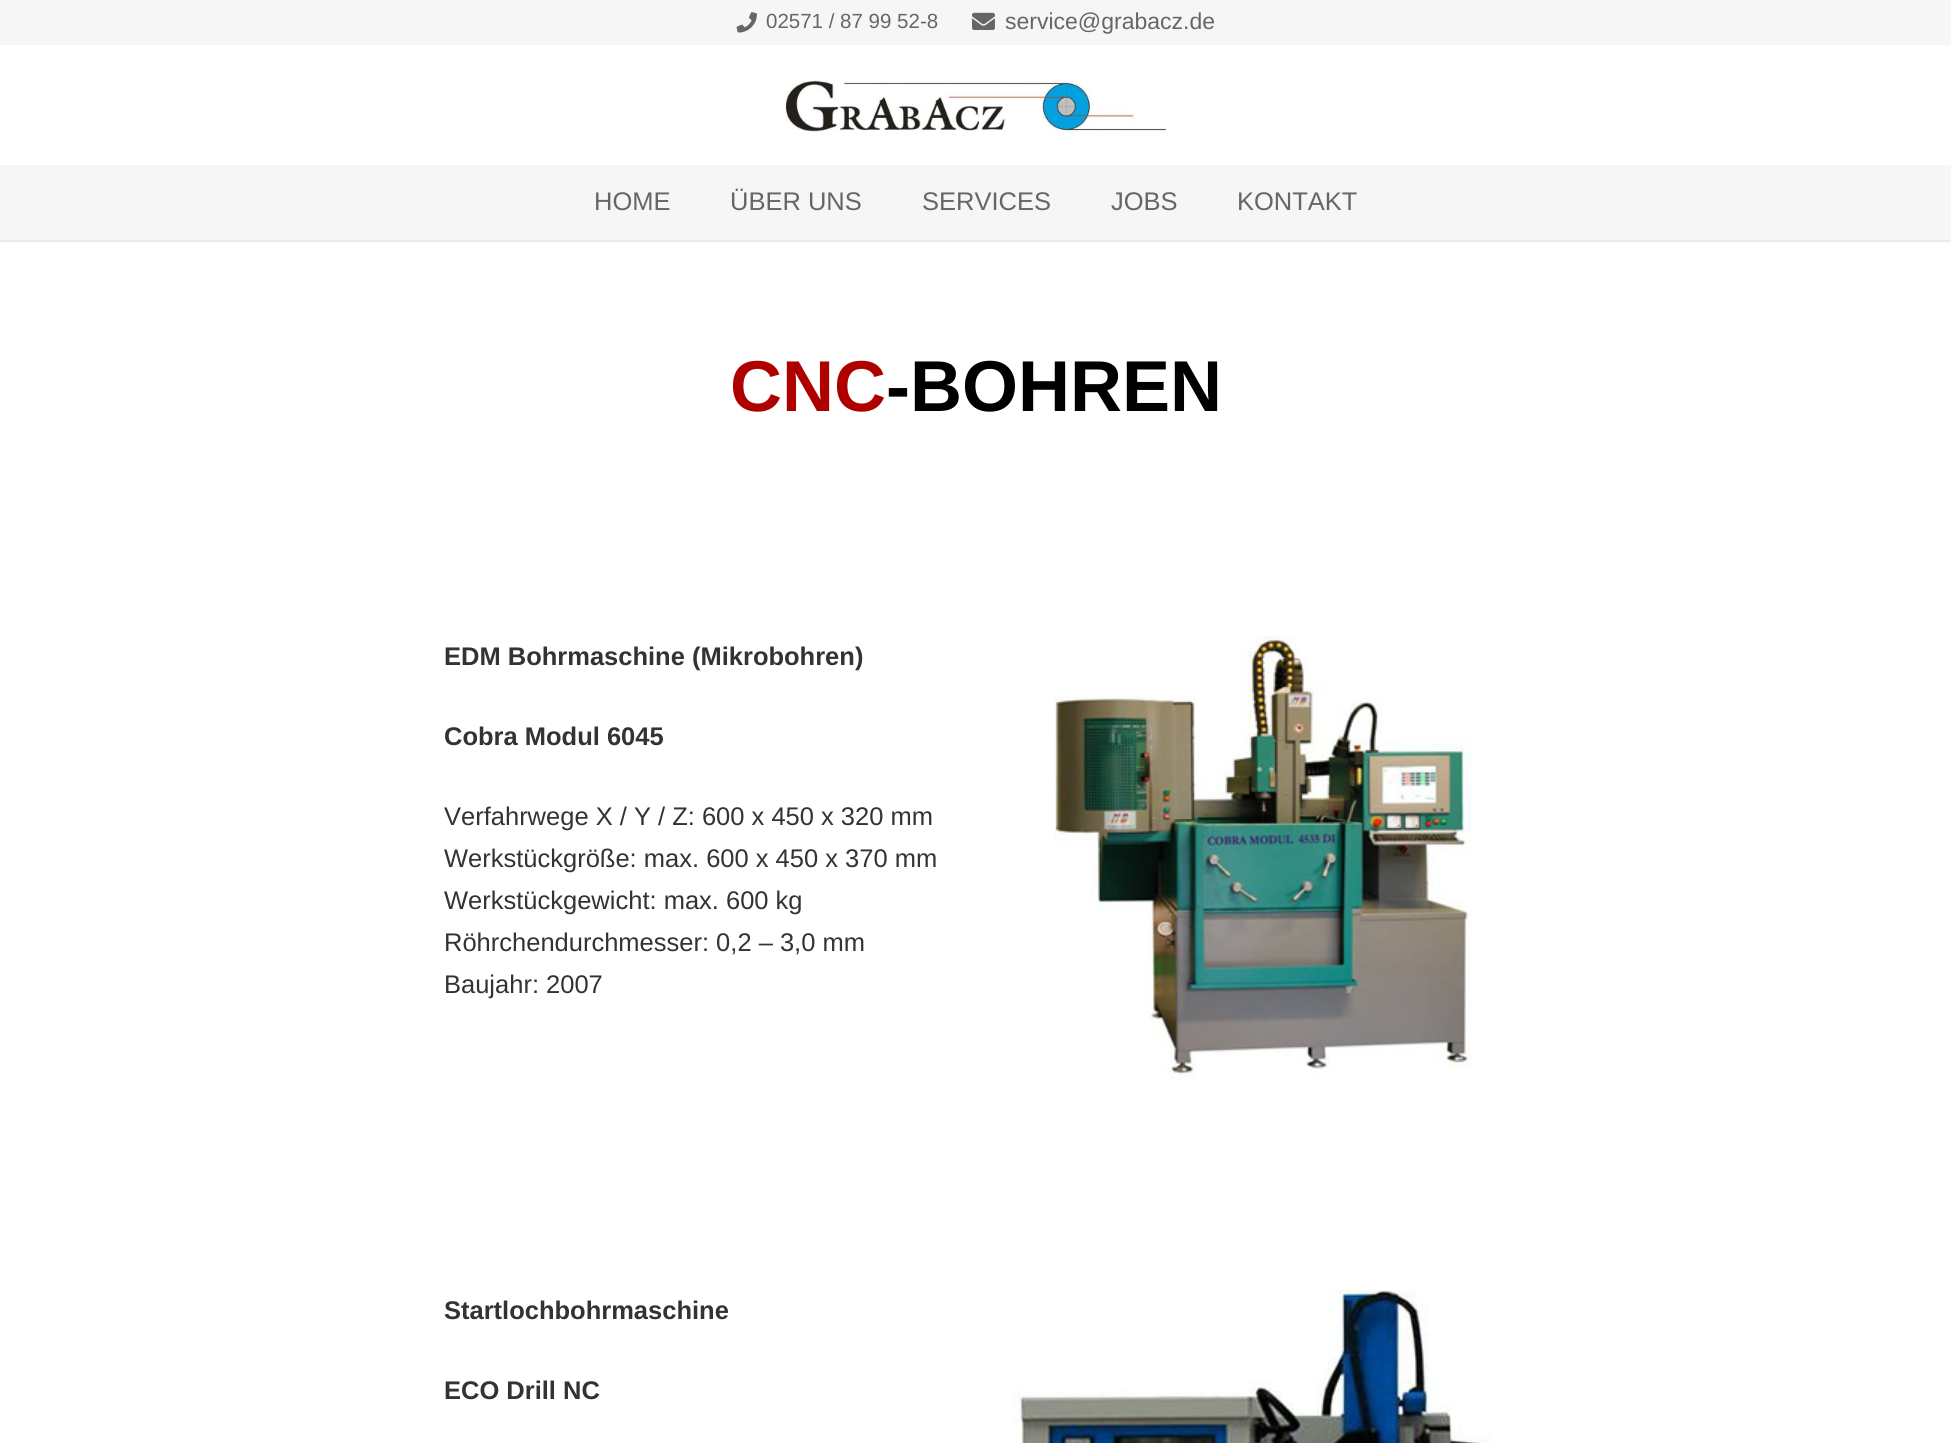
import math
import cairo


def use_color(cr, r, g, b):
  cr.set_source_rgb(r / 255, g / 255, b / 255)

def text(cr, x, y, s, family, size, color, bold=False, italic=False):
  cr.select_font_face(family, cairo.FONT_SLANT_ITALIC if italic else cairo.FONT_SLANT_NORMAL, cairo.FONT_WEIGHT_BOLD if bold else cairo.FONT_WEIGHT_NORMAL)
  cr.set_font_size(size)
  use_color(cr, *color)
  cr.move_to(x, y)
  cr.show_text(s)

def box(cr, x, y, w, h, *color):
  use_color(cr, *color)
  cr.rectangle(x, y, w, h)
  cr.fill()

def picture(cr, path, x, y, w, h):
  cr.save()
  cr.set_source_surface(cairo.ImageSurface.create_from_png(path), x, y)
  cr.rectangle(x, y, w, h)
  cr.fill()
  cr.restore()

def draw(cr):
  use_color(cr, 255, 255, 255)
  cr.paint()
  box(cr, 0, 0, 1951, 45, 246, 246, 246)
  picture(cr, "img_01.png", 736, 12, 21, 21)
  picture(cr, "img_02.png", 972, 12, 23, 18)
  picture(cr, "img_03.png", 785, 79, 383, 53)
  use_color(cr, 235, 235, 235)
  cr.new_path()
  cr.move_to(0, 240)
  cr.line_to(0, 242)
  cr.line_to(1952, 242)
  cr.line_to(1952, 167)
  cr.line_to(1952, 240)
  cr.close_path()
  cr.fill()
  box(cr, 0, 165, 1951, 75, 246, 246, 246)
  picture(cr, "img_04.png", 1054, 636, 418, 444)
  picture(cr, "img_05.png", 1014, 1290, 478, 153)
  text(cr, 766, 28, "02571 / 87 99 52-8", "Liberation Sans", 20.5, (102, 102, 102))
  text(cr, 1005, 29, "service@grabacz.de", "Liberation Sans", 23, (102, 102, 102))
  text(cr, 594, 210, "HOME", "Liberation Sans", 25.5, (102, 102, 102))
  text(cr, 730, 210, "ÜBER UNS", "Liberation Sans", 25.5, (102, 102, 102))
  text(cr, 922, 210, "SERVICES", "Liberation Sans", 25.5, (102, 102, 102))
  text(cr, 1111, 210, "JOBS", "Liberation Sans", 25.5, (102, 102, 102))
  text(cr, 1237, 210, "KONTAKT", "Liberation Sans", 25.5, (102, 102, 102))
  text(cr, 730, 411, "CNC", "Liberation Sans", 72, (175, 0, 0), bold=True)
  text(cr, 886, 411, "-BOHREN", "Liberation Sans", 72, (0, 0, 0), bold=True)
  text(cr, 444, 665, "EDM Bohrmaschine (Mikrobohren)", "Liberation Sans", 25.5, (51, 51, 51), bold=True)
  text(cr, 444, 745, "Cobra Modul 6045", "Liberation Sans", 25.5, (51, 51, 51), bold=True)
  text(cr, 444, 825, "Verfahrwege X / Y / Z: 600 x 450 x 320 mm", "Liberation Sans", 25.5, (51, 51, 51))
  text(cr, 444, 867, "Werkstückgröße: max. 600 x 450 x 370 mm", "Liberation Sans", 25.5, (51, 51, 51))
  text(cr, 444, 909, "Werkstückgewicht: max. 600 kg", "Liberation Sans", 25.5, (51, 51, 51))
  text(cr, 444, 951, "Röhrchendurchmesser: 0,2 – 3,0 mm", "Liberation Sans", 25.5, (51, 51, 51))
  text(cr, 444, 993, "Baujahr: 2007", "Liberation Sans", 25.5, (51, 51, 51))
  text(cr, 444, 1319, "Startlochbohrmaschine", "Liberation Sans", 25.5, (51, 51, 51), bold=True)
  text(cr, 444, 1399, "ECO Drill NC", "Liberation Sans", 25.5, (51, 51, 51), bold=True)


surface = cairo.ImageSurface(cairo.FORMAT_RGB24, 1951, 1443)
cr = cairo.Context(surface)
options = cairo.FontOptions()
options.set_hint_metrics(cairo.HINT_METRICS_OFF)
options.set_hint_style(cairo.HINT_STYLE_NONE)
cr.set_font_options(options)
cr.set_miter_limit(4)
draw(cr)
surface.write_to_png("out.png")
